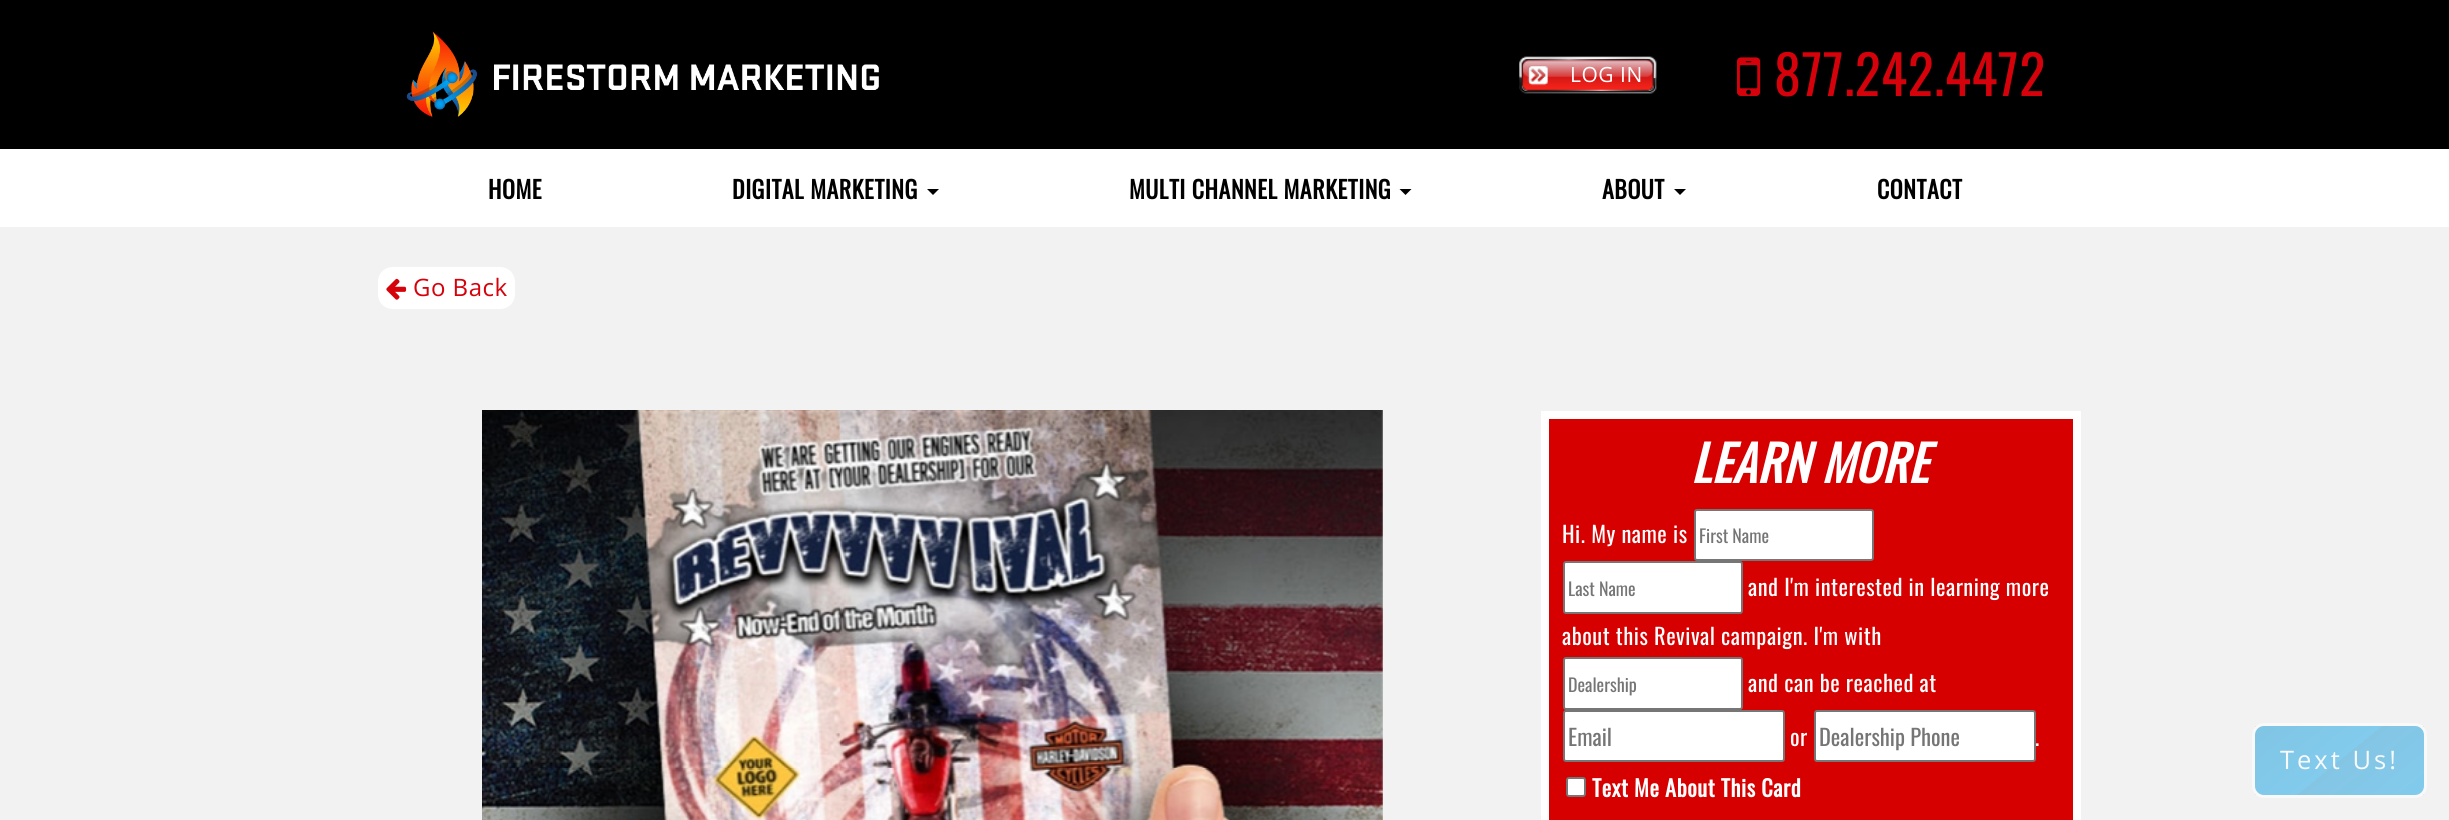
import math
import cairo


def use_color(cr, r, g, b):
  cr.set_source_rgb(r / 255, g / 255, b / 255)

def text(cr, x, y, s, family, size, color, bold=False, italic=False):
  cr.select_font_face(family, cairo.FONT_SLANT_ITALIC if italic else cairo.FONT_SLANT_NORMAL, cairo.FONT_WEIGHT_BOLD if bold else cairo.FONT_WEIGHT_NORMAL)
  cr.set_font_size(size)
  use_color(cr, *color)
  cr.move_to(x, y)
  cr.show_text(s)

def spaced_text(cr, x, y, s, letter, word):
  cr.move_to(x, y)
  for ch in s:
    cr.show_text(ch)
    cr.rel_move_to(letter + word * (ch == ' '), 0)

def box(cr, x, y, w, h, *color):
  use_color(cr, *color)
  cr.rectangle(x, y, w, h)
  cr.fill()

def round_rect(cr, x, y, w, h, r):
  cr.new_sub_path()
  for i, (u, v) in enumerate([(x + w - r, y + h - r), (x + r, y + h - r), (x + r, y + r), (x + w - r, y + r)]):
    cr.arc(u, v, r, i * math.pi / 2, (i + 1) * math.pi / 2)
  cr.close_path()

def picture(cr, path, x, y, w, h):
  cr.save()
  cr.set_source_surface(cairo.ImageSurface.create_from_png(path), x, y)
  cr.rectangle(x, y, w, h)
  cr.fill()
  cr.restore()

def draw(cr):
  use_color(cr, 242, 242, 242)
  cr.paint()
  box(cr, 0, 0, 2449, 149, 0, 0, 0)
  picture(cr, "img_01.png", 406, 31, 473, 86)
  picture(cr, "img_02.png", 1519, 56, 138, 38)
  picture(cr, "img_03.png", 1737, 57, 24, 39)
  box(cr, 0, 149, 2449, 78, 255, 255, 255)
  use_color(cr, 0, 0, 0)
  cr.new_path()
  cr.move_to(927, 189)
  cr.line_to(939, 189)
  cr.line_to(933, 195)
  cr.close_path()
  cr.fill()
  cr.new_path()
  cr.move_to(1399.5, 189)
  cr.line_to(1411.5, 189)
  cr.line_to(1405.5, 195)
  cr.close_path()
  cr.fill()
  cr.new_path()
  cr.move_to(1674, 189)
  cr.line_to(1686, 189)
  cr.line_to(1680, 195)
  cr.close_path()
  cr.fill()
  use_color(cr, 255, 255, 255)
  cr.new_path()
  cr.move_to(392.5, 267)
  cr.line_to(407, 267)
  cr.line_to(407, 309)
  cr.line_to(392.5, 309)
  cr.curve_to(384.5, 309, 378, 302.5, 378, 294.5)
  cr.line_to(378, 281.5)
  cr.curve_to(378, 273.5, 384.5, 267, 392.5, 267)
  cr.close_path()
  cr.fill()
  cr.new_path()
  cr.move_to(407, 267)
  cr.line_to(500, 267)
  cr.curve_to(508.5, 267, 515, 273.5, 515, 282)
  cr.line_to(515, 294)
  cr.curve_to(515, 302.5, 508.5, 309, 500, 309)
  cr.line_to(407, 309)
  cr.close_path()
  cr.fill()
  picture(cr, "img_04.png", 386, 278, 21, 22)
  picture(cr, "img_05.png", 482, 410, 901, 410)
  use_color(cr, 215, 0, 0)
  cr.rectangle(1545, 415, 532, 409)
  cr.fill_preserve()
  use_color(cr, 255, 255, 255)
  cr.set_line_width(8)
  cr.stroke()
  round_rect(cr, 1695, 510, 178, 50, 2)
  cr.fill_preserve()
  use_color(cr, 118, 118, 118)
  cr.set_line_width(2)
  cr.stroke()
  use_color(cr, 255, 255, 255)
  round_rect(cr, 1564, 562, 178, 51, 2)
  cr.fill_preserve()
  use_color(cr, 118, 118, 118)
  cr.stroke()
  use_color(cr, 255, 255, 255)
  round_rect(cr, 1564, 658, 178, 51, 2)
  cr.fill_preserve()
  use_color(cr, 118, 118, 118)
  cr.stroke()
  use_color(cr, 255, 255, 255)
  round_rect(cr, 1564, 711, 220, 50, 2)
  cr.fill_preserve()
  use_color(cr, 118, 118, 118)
  cr.stroke()
  use_color(cr, 255, 255, 255)
  round_rect(cr, 1815, 711, 220, 50, 2)
  cr.fill_preserve()
  use_color(cr, 118, 118, 118)
  cr.stroke()
  use_color(cr, 255, 255, 255)
  round_rect(cr, 1567, 778, 18, 18, 2)
  cr.fill_preserve()
  use_color(cr, 118, 118, 118)
  cr.stroke()
  cr.save()
  round_rect(cr, 2252, 723, 175, 75, 12)
  cr.clip()
  gradient = cairo.LinearGradient(2289, 698, 2390, 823)
  gradient.add_color_stop_rgba(0, 0.502, 0.769, 0.89, 1)
  gradient.add_color_stop_rgba(0.5, 0.51, 0.796, 0.929, 1)
  gradient.add_color_stop_rgba(0.5, 0.518, 0.773, 0.894, 1)
  gradient.add_color_stop_rgba(1, 0.51, 0.796, 0.929, 1)
  cr.set_source(gradient)
  cr.rectangle(2255, 726, 169, 69)
  cr.fill()
  cr.restore()
  round_rect(cr, 2253.5, 724.5, 172, 72, 10.5)
  use_color(cr, 249, 249, 249)
  cr.set_line_width(3)
  cr.stroke()
  cr.select_font_face("Open Sans")
  cr.set_font_size(21)
  use_color(cr, 255, 255, 255)
  spaced_text(cr, 1570, 82, "LOG IN", 0.5, 0)
  cr.select_font_face("Oswald")
  cr.set_font_size(54)
  use_color(cr, 213, 1, 11)
  spaced_text(cr, 1774, 96, "877.242.4472", 0.5, 0)
  cr.select_font_face("Oswald", cairo.FONT_SLANT_NORMAL, cairo.FONT_WEIGHT_BOLD)
  cr.set_font_size(24)
  use_color(cr, 0, 0, 0)
  spaced_text(cr, 488, 199, "HOME", 0.5, 0)
  spaced_text(cr, 732, 199, "DIGITAL MARKETING", 0.5, 0)
  spaced_text(cr, 1129, 199, "MULTI CHANNEL MARKETING", 0.5, 0)
  spaced_text(cr, 1602, 199, "ABOUT", 0.5, 0)
  spaced_text(cr, 1877, 199, "CONTACT", 0.5, 0)
  cr.select_font_face("Open Sans")
  use_color(cr, 213, 1, 11)
  spaced_text(cr, 413, 296, "Go Back", 0.5, 0)
  cr.select_font_face("Oswald", cairo.FONT_SLANT_ITALIC, cairo.FONT_WEIGHT_BOLD)
  cr.set_font_size(49.5)
  use_color(cr, 255, 255, 255)
  spaced_text(cr, 1691, 483, "LEARN MORE", 0.5, 0)
  cr.select_font_face("Oswald")
  cr.set_font_size(22.5)
  spaced_text(cr, 1562, 543, "Hi. My name is", 0.5, 0)
  text(cr, 1699, 543, "First Name", "Oswald", 18, (117, 117, 117))
  text(cr, 1568, 596, "Last Name", "Oswald", 18, (117, 117, 117))
  cr.set_font_size(22.5)
  use_color(cr, 255, 255, 255)
  spaced_text(cr, 1748, 596, "and I'm interested in learning more", 0.5, 0)
  spaced_text(cr, 1562, 645, "about this Revival campaign. I'm with", 0.5, 0)
  text(cr, 1568, 692, "Dealership", "Oswald", 18, (117, 117, 117))
  cr.set_font_size(22.5)
  use_color(cr, 255, 255, 255)
  spaced_text(cr, 1748, 692, "and can be reached at", 0.5, 0)
  text(cr, 1568, 746, "Email", "Oswald", 22.5, (117, 117, 117))
  use_color(cr, 255, 255, 255)
  spaced_text(cr, 1790, 746, "or", 0.5, 0)
  text(cr, 1819, 746, "Dealership Phone", "Oswald", 22.5, (117, 117, 117))
  use_color(cr, 255, 255, 255)
  spaced_text(cr, 2035, 746, ".", 0.5, 0)
  cr.select_font_face("Oswald", cairo.FONT_SLANT_NORMAL, cairo.FONT_WEIGHT_BOLD)
  spaced_text(cr, 1592, 797, "Text Me About This Card", 0.5, 0)
  cr.select_font_face("Open Sans")
  cr.set_font_size(25.5)
  use_color(cr, 249, 249, 249)
  spaced_text(cr, 2280, 769, "Text Us!", 3, 0)


surface = cairo.ImageSurface(cairo.FORMAT_RGB24, 2449, 820)
cr = cairo.Context(surface)
options = cairo.FontOptions()
options.set_hint_metrics(cairo.HINT_METRICS_OFF)
options.set_hint_style(cairo.HINT_STYLE_NONE)
cr.set_font_options(options)
cr.set_miter_limit(4)
draw(cr)
surface.write_to_png("out.png")
